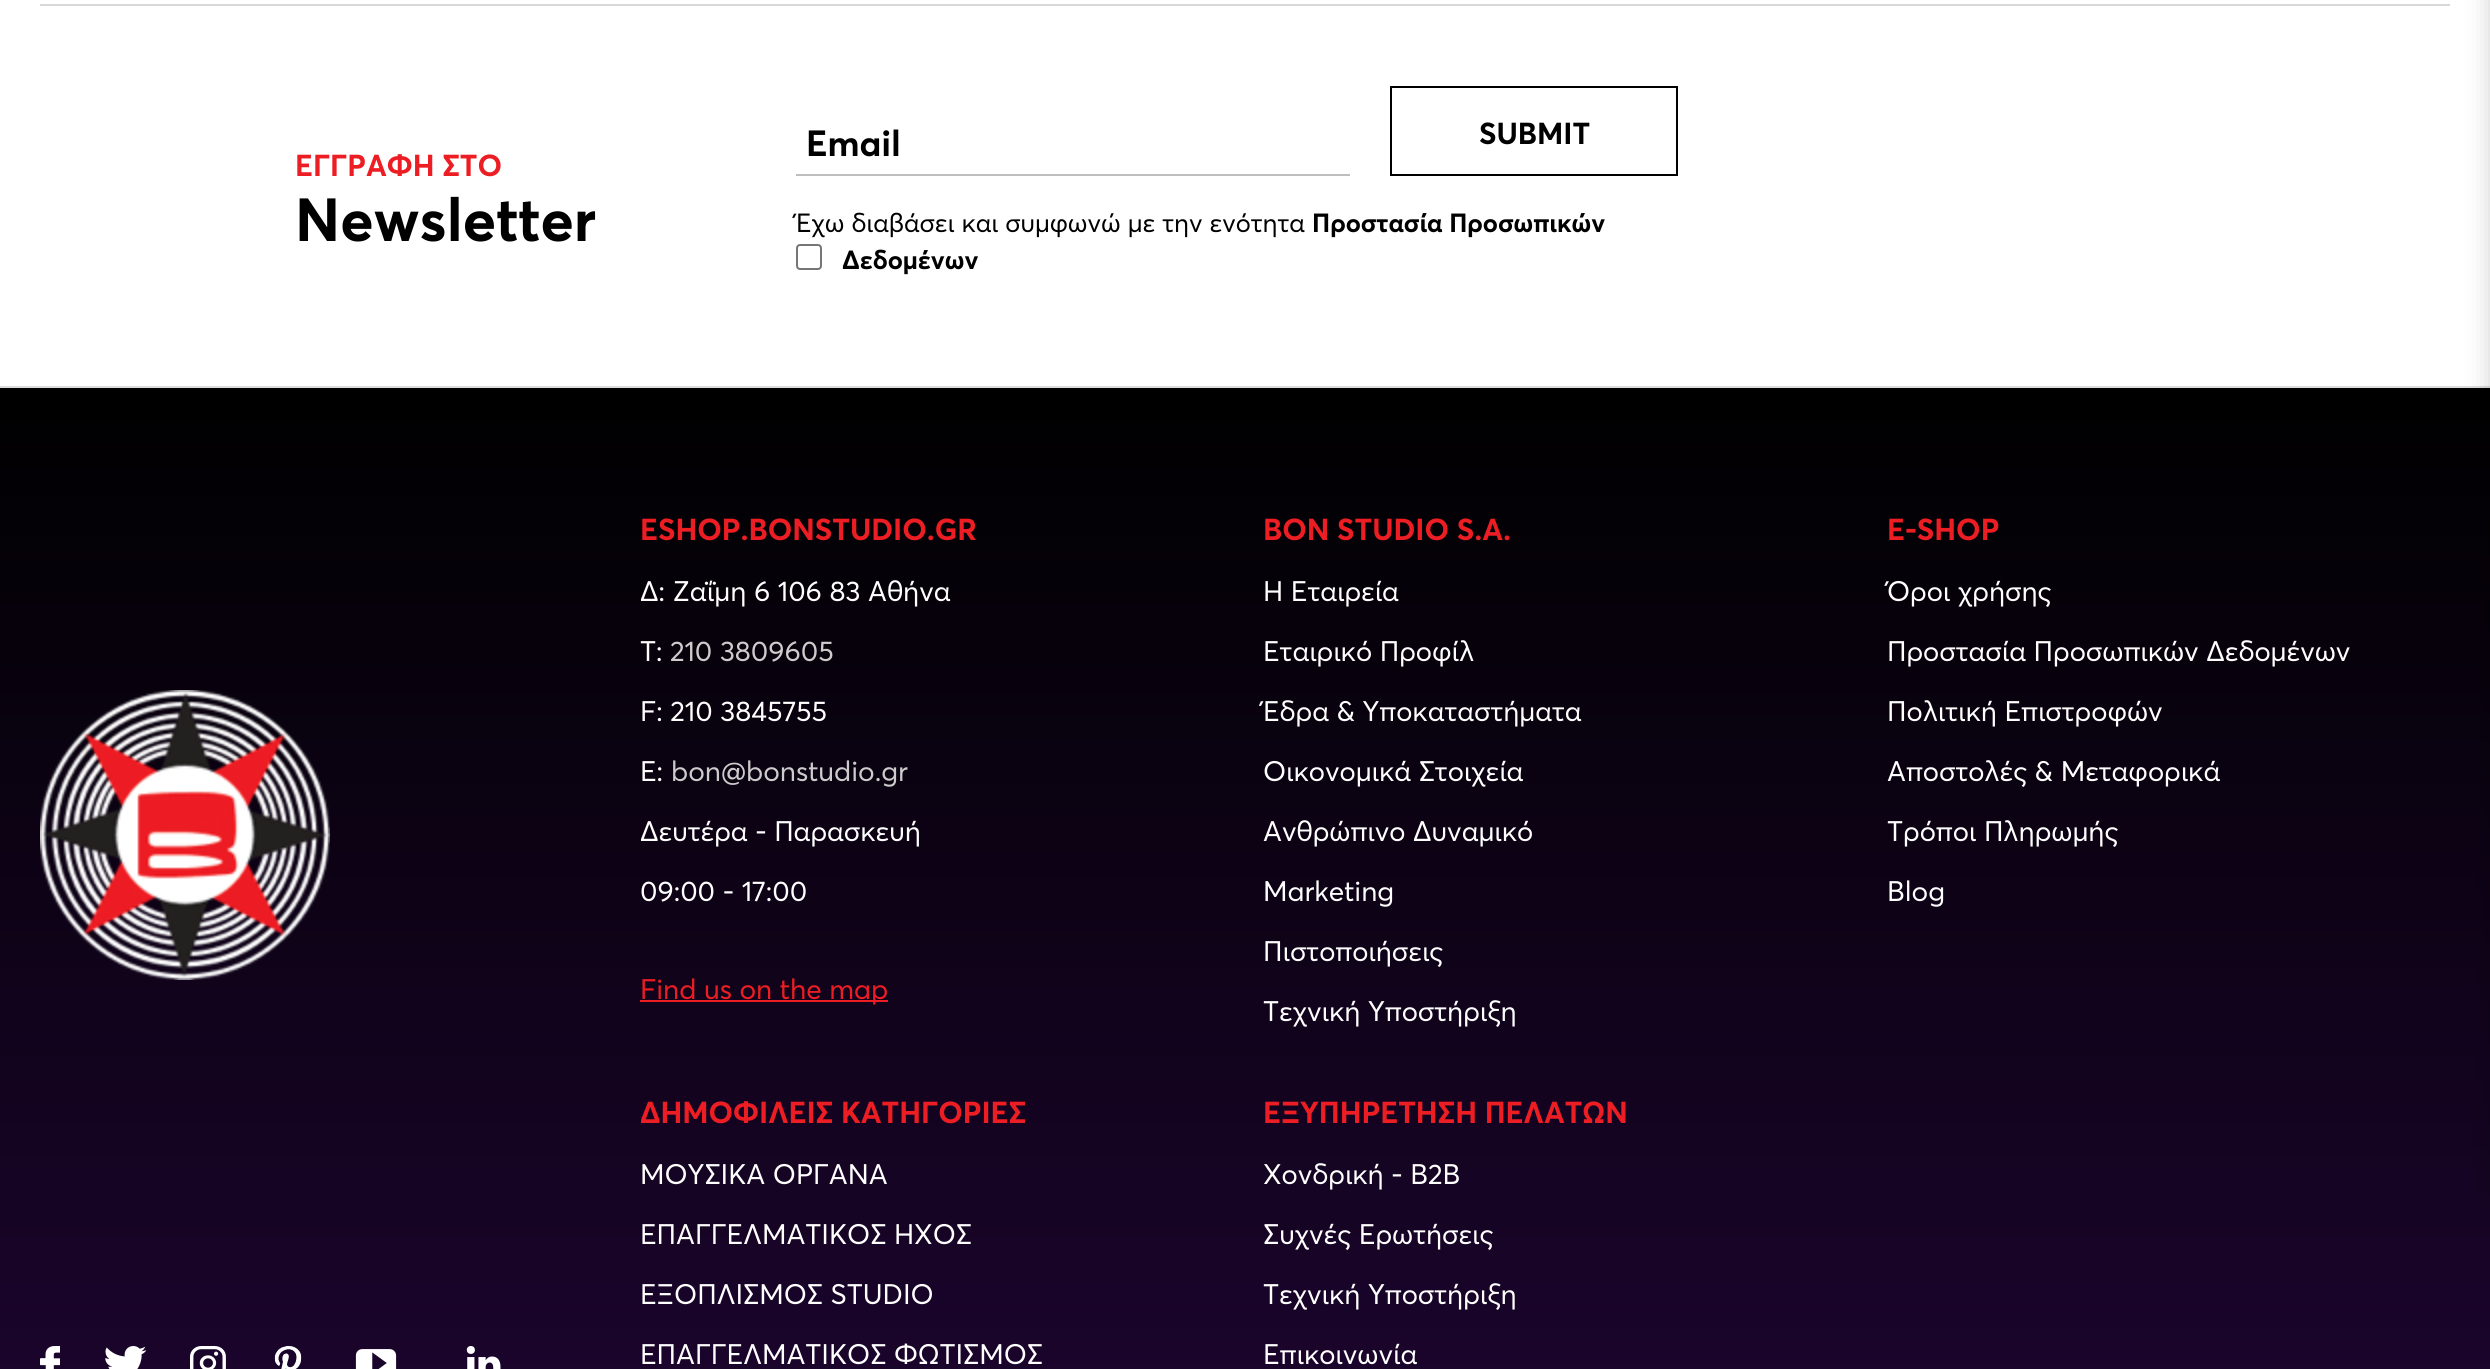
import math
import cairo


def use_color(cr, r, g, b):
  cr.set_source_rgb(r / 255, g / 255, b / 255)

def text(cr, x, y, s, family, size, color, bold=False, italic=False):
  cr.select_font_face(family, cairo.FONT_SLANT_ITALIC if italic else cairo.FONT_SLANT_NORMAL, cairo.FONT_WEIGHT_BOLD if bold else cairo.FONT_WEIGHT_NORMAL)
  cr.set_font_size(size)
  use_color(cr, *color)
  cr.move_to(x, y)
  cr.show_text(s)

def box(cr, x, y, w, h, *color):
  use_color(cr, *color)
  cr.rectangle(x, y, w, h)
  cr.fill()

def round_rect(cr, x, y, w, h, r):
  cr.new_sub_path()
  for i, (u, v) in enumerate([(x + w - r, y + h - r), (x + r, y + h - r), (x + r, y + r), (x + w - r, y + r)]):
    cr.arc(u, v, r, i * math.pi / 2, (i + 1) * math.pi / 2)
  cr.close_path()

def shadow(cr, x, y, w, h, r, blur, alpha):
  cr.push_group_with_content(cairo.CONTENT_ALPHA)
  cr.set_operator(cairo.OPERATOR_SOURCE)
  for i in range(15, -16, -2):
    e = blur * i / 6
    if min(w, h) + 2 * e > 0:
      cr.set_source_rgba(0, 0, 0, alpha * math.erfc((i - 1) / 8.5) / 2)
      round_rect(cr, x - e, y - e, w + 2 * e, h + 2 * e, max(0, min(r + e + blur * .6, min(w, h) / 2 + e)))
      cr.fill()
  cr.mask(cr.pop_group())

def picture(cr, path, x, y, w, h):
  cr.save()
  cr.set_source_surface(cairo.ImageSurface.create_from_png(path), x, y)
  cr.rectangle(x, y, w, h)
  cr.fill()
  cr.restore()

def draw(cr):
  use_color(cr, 255, 255, 255)
  cr.paint()
  box(cr, 40, 4, 2410, 2, 216, 216, 216)
  box(cr, 796, 174, 554, 2, 191, 191, 191)
  cr.rectangle(1391, 87, 286, 88)
  use_color(cr, 0, 0, 0)
  cr.stroke()
  round_rect(cr, 797, 245, 24, 24, 3)
  use_color(cr, 118, 118, 118)
  cr.stroke()
  gradient = cairo.LinearGradient(1245, 388, 1245, 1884)
  gradient.add_color_stop_rgba(0, 0, 0, 0, 1)
  gradient.add_color_stop_rgba(1, 0.157, 0.027, 0.259, 1)
  cr.set_source(gradient)
  cr.rectangle(0, 388, 2490, 981)
  cr.fill()
  box(cr, 0, 386, 2490, 2, 221, 221, 221)
  use_color(cr, 0, 0, 0)
  shadow(cr, 2490, -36, 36, 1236, 0, 12, 0.18)
  picture(cr, "img_01.png", 40, 690, 290, 290)
  picture(cr, "img_02.png", 40, 1346, 20, 23)
  picture(cr, "img_03.png", 105, 1346, 41, 23)
  picture(cr, "img_04.png", 190, 1346, 36, 23)
  picture(cr, "img_05.png", 274, 1346, 28, 23)
  picture(cr, "img_06.png", 355, 1349, 42, 20)
  picture(cr, "img_07.png", 466, 1346, 35, 23)
  box(cr, 640, 1000, 248, 2, 237, 29, 36)
  text(cr, 295, 176, "ΕΓΓΡΑΦΗ ΣΤΟ", "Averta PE", 30, (237, 29, 36), bold=True)
  text(cr, 295, 241, "Newsletter", "Averta PE", 60, (0, 0, 0), bold=True)
  text(cr, 806, 156, "Email", "Averta PE", 36, (0, 0, 0), bold=True)
  text(cr, 1479, 144, "SUBMIT", "Averta PE", 30, (0, 0, 0), bold=True)
  text(cr, 796, 232, "Έχω διαβάσει και συμφωνώ με την ενότητα", "Averta PE", 26, (0, 0, 0))
  text(cr, 1312, 232, "Προστασία Προσωπικών", "Averta PE", 26, (0, 0, 0), bold=True)
  text(cr, 842, 269, "Δεδομένων", "Averta PE", 26, (0, 0, 0), bold=True)
  text(cr, 640, 540, "ESHOP.BONSTUDIO.GR", "Averta PE", 30, (237, 29, 36), bold=True)
  text(cr, 640, 601, "Δ: Ζαΐμη 6 106 83 Αθήνα", "Averta PE", 28, (255, 255, 255))
  text(cr, 640, 661, "Τ:", "Averta PE", 28, (255, 255, 255))
  text(cr, 670, 661, "210 3809605", "Averta PE", 28, (204, 204, 204))
  text(cr, 640, 721, "F: 210 3845755", "Averta PE", 28, (255, 255, 255))
  text(cr, 640, 781, "E:", "Averta PE", 28, (255, 255, 255))
  text(cr, 671, 781, "bon@bonstudio.gr", "Averta PE", 28, (204, 204, 204))
  text(cr, 640, 841, "Δευτέρα - Παρασκευή", "Averta PE", 28, (255, 255, 255))
  text(cr, 640, 901, "09:00 - 17:00", "Averta PE", 28, (255, 255, 255))
  text(cr, 640, 999, "Find us on the map", "Averta PE", 28, (237, 29, 36))
  text(cr, 1263, 540, "BON STUDIO S.A.", "Averta PE", 30, (237, 29, 36), bold=True)
  text(cr, 1263, 601, "Η Εταιρεία", "Averta PE", 28, (255, 255, 255))
  text(cr, 1263, 661, "Εταιρικό Προφίλ", "Averta PE", 28, (255, 255, 255))
  text(cr, 1263, 721, "Έδρα & Υποκαταστήματα", "Averta PE", 28, (255, 255, 255))
  text(cr, 1263, 781, "Οικονομικά Στοιχεία", "Averta PE", 28, (255, 255, 255))
  text(cr, 1263, 841, "Ανθρώπινο Δυναμικό", "Averta PE", 28, (255, 255, 255))
  text(cr, 1263, 901, "Marketing", "Averta PE", 28, (255, 255, 255))
  text(cr, 1263, 961, "Πιστοποιήσεις", "Averta PE", 28, (255, 255, 255))
  text(cr, 1263, 1021, "Τεχνική Υποστήριξη", "Averta PE", 28, (255, 255, 255))
  text(cr, 1887, 540, "E-SHOP", "Averta PE", 30, (237, 29, 36), bold=True)
  text(cr, 1887, 601, "Όροι χρήσης", "Averta PE", 28, (255, 255, 255))
  text(cr, 1887, 661, "Προστασία Προσωπικών Δεδομένων", "Averta PE", 28, (255, 255, 255))
  text(cr, 1887, 721, "Πολιτική Επιστροφών", "Averta PE", 28, (255, 255, 255))
  text(cr, 1887, 781, "Αποστολές & Μεταφορικά", "Averta PE", 28, (255, 255, 255))
  text(cr, 1887, 841, "Τρόποι Πληρωμής", "Averta PE", 28, (255, 255, 255))
  text(cr, 1887, 901, "Blog", "Averta PE", 28, (255, 255, 255))
  text(cr, 640, 1123, "ΔΗΜΟΦΙΛΕΙΣ ΚΑΤΗΓΟΡΙΕΣ", "Averta PE", 30, (237, 29, 36), bold=True)
  text(cr, 640, 1184, "ΜΟΥΣΙΚΑ ΟΡΓΑΝΑ", "Averta PE", 28, (255, 255, 255))
  text(cr, 640, 1244, "ΕΠΑΓΓΕΛΜΑΤΙΚΟΣ ΗΧΟΣ", "Averta PE", 28, (255, 255, 255))
  text(cr, 640, 1304, "ΕΞΟΠΛΙΣΜΟΣ STUDIO", "Averta PE", 28, (255, 255, 255))
  text(cr, 640, 1364, "ΕΠΑΓΓΕΛΜΑΤΙΚΟΣ ΦΩΤΙΣΜΟΣ", "Averta PE", 28, (255, 255, 255))
  text(cr, 1263, 1123, "ΕΞΥΠΗΡΕΤΗΣΗ ΠΕΛΑΤΩΝ", "Averta PE", 30, (237, 29, 36), bold=True)
  text(cr, 1263, 1184, "Χονδρική - B2B", "Averta PE", 28, (255, 255, 255))
  text(cr, 1263, 1244, "Συχνές Ερωτήσεις", "Averta PE", 28, (255, 255, 255))
  text(cr, 1263, 1304, "Τεχνική Υποστήριξη", "Averta PE", 28, (255, 255, 255))
  text(cr, 1263, 1364, "Επικοινωνία", "Averta PE", 28, (255, 255, 255))


surface = cairo.ImageSurface(cairo.FORMAT_RGB24, 2490, 1369)
cr = cairo.Context(surface)
options = cairo.FontOptions()
options.set_hint_metrics(cairo.HINT_METRICS_OFF)
options.set_hint_style(cairo.HINT_STYLE_NONE)
cr.set_font_options(options)
cr.set_miter_limit(4)
draw(cr)
surface.write_to_png("out.png")
